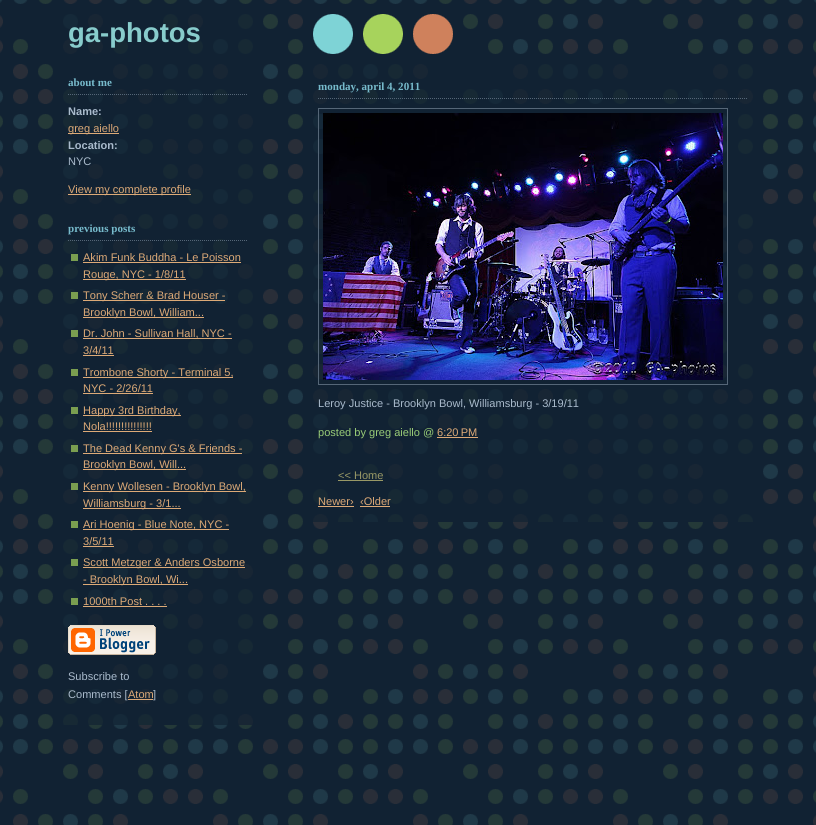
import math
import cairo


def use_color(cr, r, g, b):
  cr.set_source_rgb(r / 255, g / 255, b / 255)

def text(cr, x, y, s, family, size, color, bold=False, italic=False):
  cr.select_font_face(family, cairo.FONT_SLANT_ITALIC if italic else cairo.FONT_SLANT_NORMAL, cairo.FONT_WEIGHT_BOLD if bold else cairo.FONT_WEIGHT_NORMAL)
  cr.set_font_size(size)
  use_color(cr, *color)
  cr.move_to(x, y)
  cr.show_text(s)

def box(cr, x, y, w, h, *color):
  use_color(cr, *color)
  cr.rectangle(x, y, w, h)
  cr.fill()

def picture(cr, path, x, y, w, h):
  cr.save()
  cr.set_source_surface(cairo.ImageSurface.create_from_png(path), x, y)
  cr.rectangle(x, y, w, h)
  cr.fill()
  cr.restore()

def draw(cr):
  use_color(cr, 255, 255, 255)
  cr.paint()
  picture(cr, "img_01.png", 0, 0, 816, 825)
  picture(cr, "img_02.png", 313, 14, 140, 40)
  picture(cr, "img_03.png", 63, 14, 190, 711)
  cr.new_path()
  cr.move_to(68, 94.5)
  cr.line_to(248, 94.5)
  use_color(cr, 85, 102, 119)
  cr.set_line_width(1)
  cr.set_dash([1, 1])
  cr.stroke()
  box(cr, 68, 133, 51, 1, 221, 170, 119)
  box(cr, 68, 194, 123, 1, 221, 170, 119)
  cr.new_path()
  cr.move_to(68, 240.5)
  cr.line_to(248, 240.5)
  use_color(cr, 85, 102, 119)
  cr.stroke()
  box(cr, 71, 254, 7, 7, 122, 158, 80)
  box(cr, 83, 262, 158, 1, 221, 170, 119)
  box(cr, 83, 279, 103, 1, 221, 170, 119)
  box(cr, 71, 292, 7, 7, 122, 158, 80)
  box(cr, 83, 300, 142, 1, 221, 170, 119)
  box(cr, 83, 317, 121, 1, 221, 170, 119)
  box(cr, 71, 330, 7, 7, 122, 158, 80)
  box(cr, 83, 338, 149, 1, 221, 170, 119)
  box(cr, 83, 355, 31, 1, 221, 170, 119)
  box(cr, 71, 369, 7, 7, 122, 158, 80)
  box(cr, 83, 377, 150, 1, 221, 170, 119)
  box(cr, 83, 393, 70, 1, 221, 170, 119)
  box(cr, 71, 407, 7, 7, 122, 158, 80)
  box(cr, 83, 415, 98, 1, 221, 170, 119)
  box(cr, 83, 431, 69, 1, 221, 170, 119)
  box(cr, 71, 445, 7, 7, 122, 158, 80)
  box(cr, 83, 453, 159, 1, 221, 170, 119)
  box(cr, 83, 469, 103, 1, 221, 170, 119)
  box(cr, 71, 483, 7, 7, 122, 158, 80)
  box(cr, 83, 491, 163, 1, 221, 170, 119)
  box(cr, 83, 508, 98, 1, 221, 170, 119)
  box(cr, 71, 521, 7, 7, 122, 158, 80)
  box(cr, 83, 529, 146, 1, 221, 170, 119)
  box(cr, 83, 546, 31, 1, 221, 170, 119)
  box(cr, 71, 559, 7, 7, 122, 158, 80)
  box(cr, 83, 567, 162, 1, 221, 170, 119)
  box(cr, 83, 584, 105, 1, 221, 170, 119)
  box(cr, 71, 598, 7, 7, 122, 158, 80)
  box(cr, 83, 606, 84, 1, 221, 170, 119)
  picture(cr, "img_04.png", 68, 625, 88, 30)
  box(cr, 128, 699, 25, 1, 221, 170, 119)
  picture(cr, "img_05.png", 313, 64, 440, 458)
  cr.new_path()
  cr.move_to(318, 98.5)
  cr.line_to(748, 98.5)
  use_color(cr, 85, 102, 119)
  cr.stroke()
  cr.rectangle(318.5, 108.5, 409, 276)
  cr.set_dash([])
  cr.stroke()
  picture(cr, "img_06.png", 323, 113, 400, 267)
  box(cr, 437, 437, 41, 1, 221, 170, 119)
  box(cr, 338, 480, 45, 1, 153, 153, 102)
  box(cr, 318, 506, 36, 1, 221, 170, 119)
  box(cr, 360, 506, 30, 1, 221, 170, 119)
  text(cr, 68, 42, "ga-photos", "Liberation Sans", 27.5, (136, 204, 204), bold=True)
  text(cr, 68, 86, "about me", "Liberation Serif", 11.05, (119, 187, 204), bold=True)
  text(cr, 68, 115, "Name:", "Liberation Sans", 11.05, (170, 187, 204), bold=True)
  text(cr, 68, 132, "greg aiello", "Liberation Sans", 11.05, (221, 170, 119))
  text(cr, 68, 149, "Location:", "Liberation Sans", 11.05, (170, 187, 204), bold=True)
  text(cr, 68, 165, "NYC", "Liberation Sans", 11.05, (170, 187, 204))
  text(cr, 68, 193, "View my complete profile", "Liberation Sans", 11.05, (221, 170, 119))
  text(cr, 68, 232, "previous posts", "Liberation Serif", 11.05, (119, 187, 204), bold=True)
  text(cr, 83, 261, "Akim Funk Buddha - Le Poisson", "Liberation Sans", 11.05, (221, 170, 119))
  text(cr, 83, 278, "Rouge, NYC - 1/8/11", "Liberation Sans", 11.05, (221, 170, 119))
  text(cr, 83, 299, "Tony Scherr & Brad Houser -", "Liberation Sans", 11.05, (221, 170, 119))
  text(cr, 83, 316, "Brooklyn Bowl, William...", "Liberation Sans", 11.05, (221, 170, 119))
  text(cr, 83, 337, "Dr. John - Sullivan Hall, NYC -", "Liberation Sans", 11.05, (221, 170, 119))
  text(cr, 83, 354, "3/4/11", "Liberation Sans", 11.05, (221, 170, 119))
  text(cr, 83, 376, "Trombone Shorty - Terminal 5,", "Liberation Sans", 11.05, (221, 170, 119))
  text(cr, 83, 392, "NYC - 2/26/11", "Liberation Sans", 11.05, (221, 170, 119))
  text(cr, 83, 414, "Happy 3rd Birthday,", "Liberation Sans", 11.05, (221, 170, 119))
  text(cr, 83, 430, "Nola!!!!!!!!!!!!!!!", "Liberation Sans", 11.05, (221, 170, 119))
  text(cr, 83, 452, "The Dead Kenny G's & Friends -", "Liberation Sans", 11.05, (221, 170, 119))
  text(cr, 83, 468, "Brooklyn Bowl, Will...", "Liberation Sans", 11.05, (221, 170, 119))
  text(cr, 83, 490, "Kenny Wollesen - Brooklyn Bowl,", "Liberation Sans", 11.05, (221, 170, 119))
  text(cr, 83, 507, "Williamsburg - 3/1...", "Liberation Sans", 11.05, (221, 170, 119))
  text(cr, 83, 528, "Ari Hoenig - Blue Note, NYC -", "Liberation Sans", 11.05, (221, 170, 119))
  text(cr, 83, 545, "3/5/11", "Liberation Sans", 11.05, (221, 170, 119))
  text(cr, 83, 566, "Scott Metzger & Anders Osborne", "Liberation Sans", 11.05, (221, 170, 119))
  text(cr, 83, 583, "- Brooklyn Bowl, Wi...", "Liberation Sans", 11.05, (221, 170, 119))
  text(cr, 83, 605, "1000th Post . . . .", "Liberation Sans", 11.05, (221, 170, 119))
  text(cr, 68, 680, "Subscribe to", "Liberation Sans", 11.05, (170, 187, 204))
  text(cr, 68, 698, "Comments [", "Liberation Sans", 11.05, (170, 187, 204))
  text(cr, 128, 698, "Atom", "Liberation Sans", 11.05, (221, 170, 119))
  text(cr, 153, 698, "]", "Liberation Sans", 11.05, (170, 187, 204))
  text(cr, 318, 90, "monday, april 4, 2011", "Liberation Serif", 11.05, (119, 187, 204), bold=True)
  text(cr, 318, 407, "Leroy Justice - Brooklyn Bowl, Williamsburg - 3/19/11", "Liberation Sans", 11.05, (170, 187, 204))
  text(cr, 318, 436, "posted by greg aiello @", "Liberation Sans", 11.05, (153, 204, 119))
  text(cr, 437, 436, "6:20 PM", "Liberation Sans", 11.05, (221, 170, 119))
  text(cr, 338, 479, "<< Home", "Liberation Sans", 11.05, (153, 153, 102))
  text(cr, 318, 505, "Newer›", "Liberation Sans", 11.05, (221, 170, 119))
  text(cr, 360, 505, "‹Older", "Liberation Sans", 11.05, (221, 170, 119))


surface = cairo.ImageSurface(cairo.FORMAT_RGB24, 816, 825)
cr = cairo.Context(surface)
options = cairo.FontOptions()
options.set_hint_metrics(cairo.HINT_METRICS_OFF)
options.set_hint_style(cairo.HINT_STYLE_NONE)
cr.set_font_options(options)
cr.set_miter_limit(4)
draw(cr)
surface.write_to_png("out.png")
